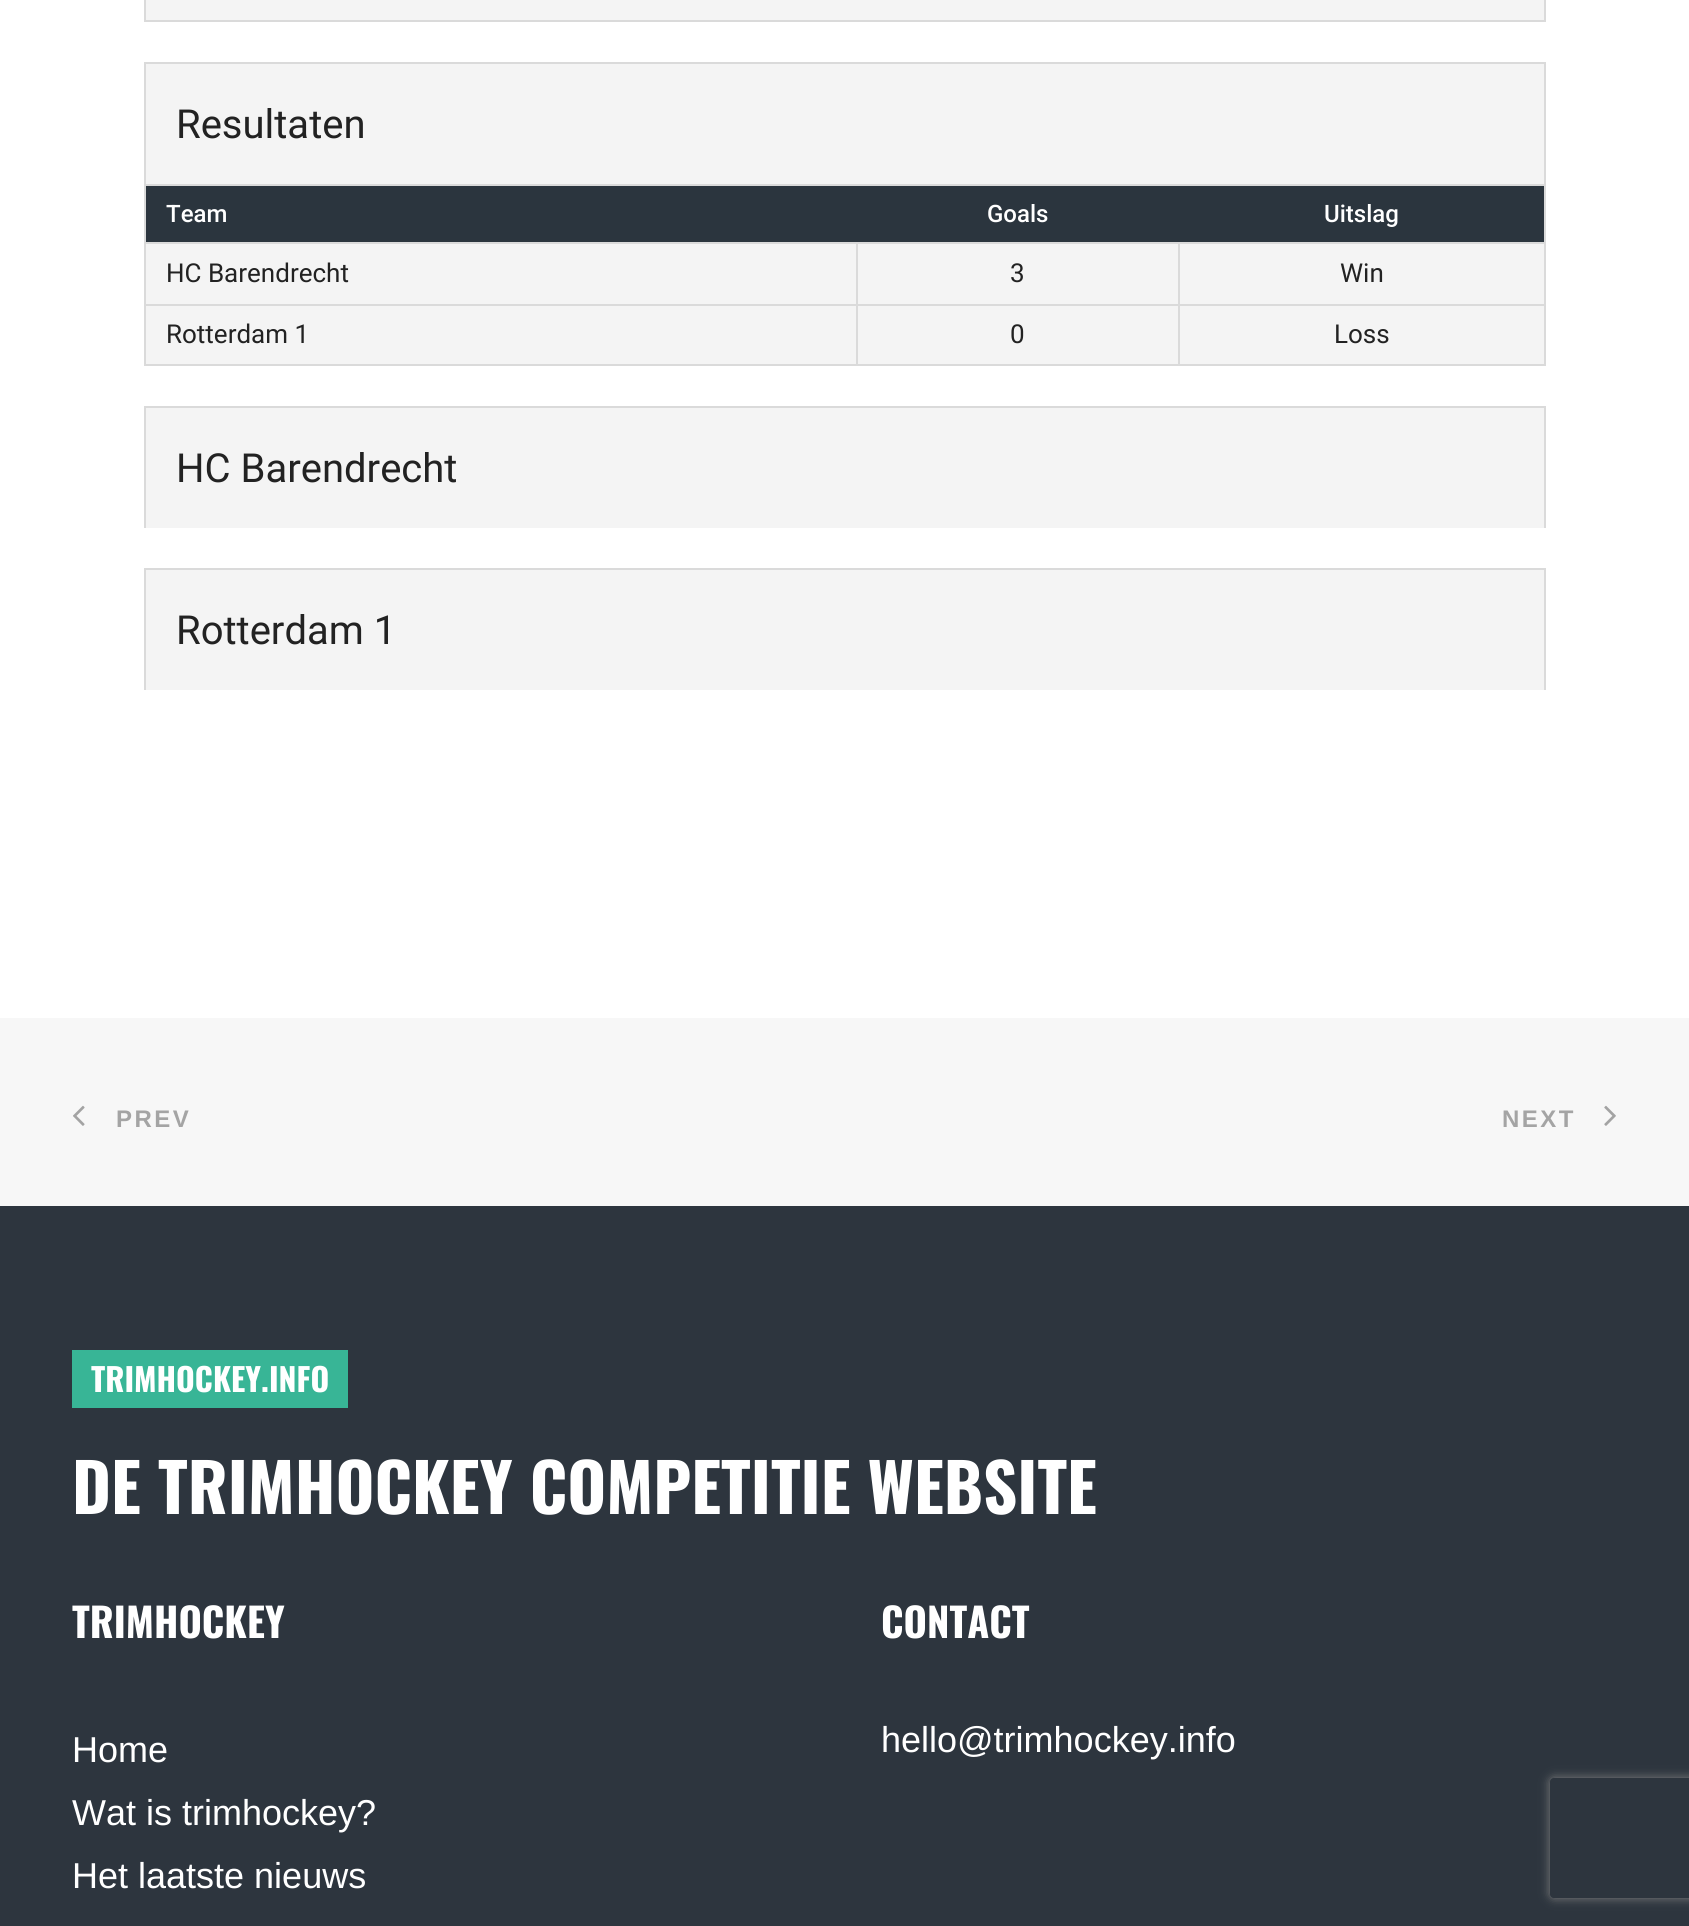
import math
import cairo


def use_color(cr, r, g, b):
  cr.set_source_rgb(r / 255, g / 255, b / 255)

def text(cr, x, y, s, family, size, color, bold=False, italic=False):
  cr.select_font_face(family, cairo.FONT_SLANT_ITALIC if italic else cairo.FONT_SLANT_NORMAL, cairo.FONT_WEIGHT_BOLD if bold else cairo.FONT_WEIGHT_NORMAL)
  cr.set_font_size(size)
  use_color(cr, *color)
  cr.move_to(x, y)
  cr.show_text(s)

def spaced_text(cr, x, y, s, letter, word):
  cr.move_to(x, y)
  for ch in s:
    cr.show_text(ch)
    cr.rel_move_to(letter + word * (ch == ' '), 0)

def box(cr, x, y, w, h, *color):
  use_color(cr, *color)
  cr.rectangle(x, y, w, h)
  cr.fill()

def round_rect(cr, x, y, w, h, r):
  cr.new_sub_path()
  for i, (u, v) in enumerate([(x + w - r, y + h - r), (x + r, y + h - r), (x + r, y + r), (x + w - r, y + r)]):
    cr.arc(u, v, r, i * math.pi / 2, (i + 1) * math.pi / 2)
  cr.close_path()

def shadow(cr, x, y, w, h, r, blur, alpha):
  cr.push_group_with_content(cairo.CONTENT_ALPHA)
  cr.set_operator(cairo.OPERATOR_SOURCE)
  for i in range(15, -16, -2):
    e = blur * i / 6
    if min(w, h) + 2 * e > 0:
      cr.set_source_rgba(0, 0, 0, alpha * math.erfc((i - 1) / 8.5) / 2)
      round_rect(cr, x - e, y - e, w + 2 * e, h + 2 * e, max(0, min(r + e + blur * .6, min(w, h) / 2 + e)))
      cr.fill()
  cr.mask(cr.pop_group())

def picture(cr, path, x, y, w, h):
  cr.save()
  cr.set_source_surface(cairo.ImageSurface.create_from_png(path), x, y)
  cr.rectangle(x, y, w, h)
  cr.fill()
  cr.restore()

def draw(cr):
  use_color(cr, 255, 255, 255)
  cr.paint()
  box(cr, 146, 0, 1398, 20, 244, 244, 244)
  box(cr, 1544, 0, 2, 22, 218, 218, 218)
  box(cr, 144, 20, 1402, 2, 218, 218, 218)
  box(cr, 144, 0, 2, 22, 218, 218, 218)
  box(cr, 146, 64, 1398, 120, 244, 244, 244)
  box(cr, 144, 62, 1402, 2, 218, 218, 218)
  box(cr, 1544, 62, 2, 122, 218, 218, 218)
  box(cr, 144, 62, 2, 122, 218, 218, 218)
  box(cr, 146, 244, 1398, 120, 244, 244, 244)
  box(cr, 144, 184, 1402, 2, 218, 218, 218)
  box(cr, 1544, 184, 2, 182, 218, 218, 218)
  box(cr, 144, 364, 1402, 2, 218, 218, 218)
  box(cr, 144, 184, 2, 182, 218, 218, 218)
  box(cr, 146, 186, 1398, 56, 43, 53, 62)
  box(cr, 1178, 242, 368, 2, 218, 218, 218)
  box(cr, 1178, 304, 368, 2, 218, 218, 218)
  box(cr, 1178, 304, 2, 62, 218, 218, 218)
  box(cr, 856, 304, 324, 2, 218, 218, 218)
  box(cr, 1178, 242, 2, 64, 218, 218, 218)
  box(cr, 856, 242, 324, 2, 218, 218, 218)
  box(cr, 856, 304, 2, 62, 218, 218, 218)
  box(cr, 144, 304, 714, 2, 218, 218, 218)
  box(cr, 856, 242, 2, 64, 218, 218, 218)
  box(cr, 144, 242, 714, 2, 218, 218, 218)
  box(cr, 146, 408, 1398, 120, 244, 244, 244)
  box(cr, 144, 406, 1402, 2, 218, 218, 218)
  box(cr, 1544, 406, 2, 122, 218, 218, 218)
  box(cr, 144, 406, 2, 122, 218, 218, 218)
  box(cr, 146, 570, 1398, 120, 244, 244, 244)
  box(cr, 144, 568, 1402, 2, 218, 218, 218)
  box(cr, 1544, 568, 2, 122, 218, 218, 218)
  box(cr, 144, 568, 2, 122, 218, 218, 218)
  box(cr, 0, 1018, 1689, 188, 247, 247, 247)
  picture(cr, "img_01.png", 73, 1105, 12, 21)
  picture(cr, "img_02.png", 1604, 1105, 12, 21)
  box(cr, 0, 1206, 1689, 720, 45, 53, 62)
  box(cr, 72, 1350, 276, 58, 56, 181, 150)
  cr.save()
  cr.set_fill_rule(cairo.FILL_RULE_EVEN_ODD)
  cr.new_path()
  cr.move_to(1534, 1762)
  cr.line_to(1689, 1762)
  cr.line_to(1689, 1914)
  cr.line_to(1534, 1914)
  cr.close_path()
  cr.move_to(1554, 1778)
  cr.line_to(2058, 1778)
  cr.curve_to(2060, 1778, 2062, 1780, 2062, 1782)
  cr.line_to(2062, 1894)
  cr.curve_to(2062, 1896, 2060, 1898, 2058, 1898)
  cr.line_to(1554, 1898)
  cr.curve_to(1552, 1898, 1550, 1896, 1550, 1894)
  cr.line_to(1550, 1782)
  cr.curve_to(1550, 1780, 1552, 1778, 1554, 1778)
  cr.close_path()
  cr.clip()
  use_color(cr, 128, 128, 128)
  shadow(cr, 1550, 1778, 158, 120, 4, 5, 1)
  cr.restore()
  text(cr, 176, 138, "Resultaten", "Roboto", 40, (34, 34, 34))
  text(cr, 166, 222, "Team", "Roboto Medium", 24, (255, 255, 255))
  text(cr, 987, 222, "Goals", "Roboto Medium", 24, (255, 255, 255))
  text(cr, 1324, 222, "Uitslag", "Roboto Medium", 24, (255, 255, 255))
  text(cr, 166, 282, "HC Barendrecht", "Roboto", 26, (34, 34, 34))
  text(cr, 1010, 282, "3", "Roboto", 26, (34, 34, 34))
  text(cr, 1340, 282, "Win", "Roboto", 26, (34, 34, 34))
  text(cr, 166, 343, "Rotterdam 1", "Roboto", 26, (34, 34, 34))
  text(cr, 1010, 343, "0", "Roboto", 26, (34, 34, 34))
  text(cr, 1334, 343, "Loss", "Roboto", 26, (34, 34, 34))
  text(cr, 176, 482, "HC Barendrecht", "Roboto", 40, (34, 34, 34))
  text(cr, 176, 644, "Rotterdam 1", "Roboto", 40, (34, 34, 34))
  cr.select_font_face("Liberation Sans", cairo.FONT_SLANT_NORMAL, cairo.FONT_WEIGHT_BOLD)
  cr.set_font_size(24)
  use_color(cr, 164, 164, 164)
  spaced_text(cr, 116, 1127, "PREV", 2.5, 0)
  spaced_text(cr, 1502, 1127, "NEXT", 2.5, 0)
  text(cr, 91, 1392, "TRIMHOCKEY.INFO", "Oswald", 32, (255, 255, 255), bold=True)
  text(cr, 72, 1514, "DE TRIMHOCKEY COMPETITIE WEBSITE", "Oswald", 66.7, (255, 255, 255), bold=True)
  text(cr, 72, 1638, "TRIMHOCKEY", "Oswald", 40, (255, 255, 255), bold=True)
  text(cr, 72, 1762, "Home", "Liberation Sans", 36, (255, 255, 255))
  text(cr, 72, 1825, "Wat is trimhockey?", "Liberation Sans", 36, (255, 255, 255))
  text(cr, 72, 1888, "Het laatste nieuws", "Liberation Sans", 36, (255, 255, 255))
  text(cr, 881, 1638, "CONTACT", "Oswald", 40, (255, 255, 255), bold=True)
  text(cr, 881, 1752, "hello@trimhockey.info", "Liberation Sans", 36, (255, 255, 255))


surface = cairo.ImageSurface(cairo.FORMAT_RGB24, 1689, 1926)
cr = cairo.Context(surface)
options = cairo.FontOptions()
options.set_hint_metrics(cairo.HINT_METRICS_OFF)
options.set_hint_style(cairo.HINT_STYLE_NONE)
cr.set_font_options(options)
cr.set_miter_limit(4)
draw(cr)
surface.write_to_png("out.png")
